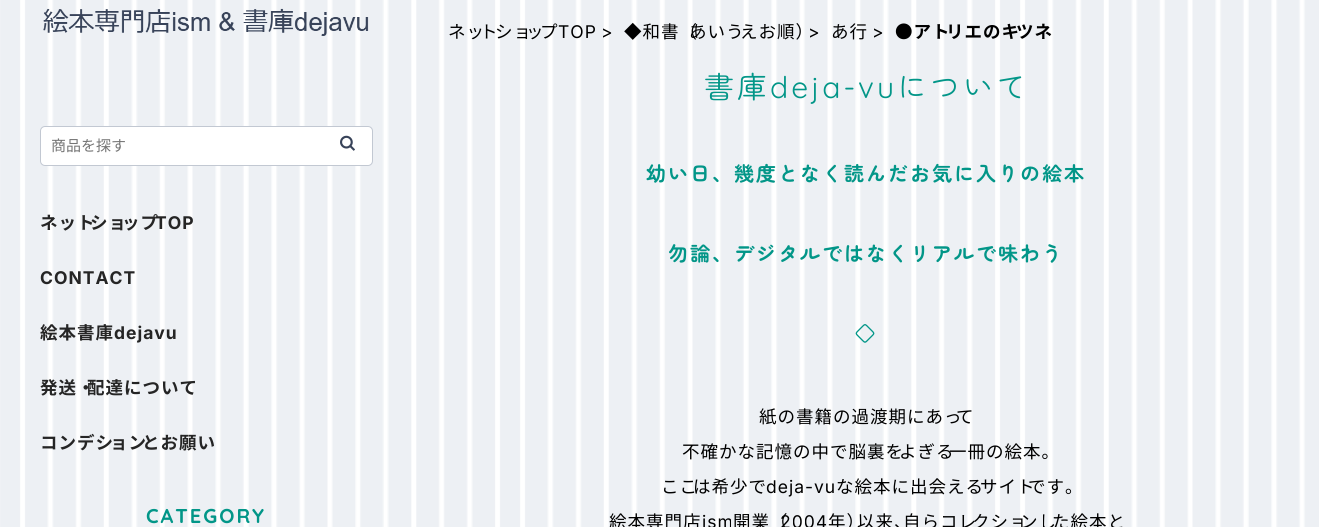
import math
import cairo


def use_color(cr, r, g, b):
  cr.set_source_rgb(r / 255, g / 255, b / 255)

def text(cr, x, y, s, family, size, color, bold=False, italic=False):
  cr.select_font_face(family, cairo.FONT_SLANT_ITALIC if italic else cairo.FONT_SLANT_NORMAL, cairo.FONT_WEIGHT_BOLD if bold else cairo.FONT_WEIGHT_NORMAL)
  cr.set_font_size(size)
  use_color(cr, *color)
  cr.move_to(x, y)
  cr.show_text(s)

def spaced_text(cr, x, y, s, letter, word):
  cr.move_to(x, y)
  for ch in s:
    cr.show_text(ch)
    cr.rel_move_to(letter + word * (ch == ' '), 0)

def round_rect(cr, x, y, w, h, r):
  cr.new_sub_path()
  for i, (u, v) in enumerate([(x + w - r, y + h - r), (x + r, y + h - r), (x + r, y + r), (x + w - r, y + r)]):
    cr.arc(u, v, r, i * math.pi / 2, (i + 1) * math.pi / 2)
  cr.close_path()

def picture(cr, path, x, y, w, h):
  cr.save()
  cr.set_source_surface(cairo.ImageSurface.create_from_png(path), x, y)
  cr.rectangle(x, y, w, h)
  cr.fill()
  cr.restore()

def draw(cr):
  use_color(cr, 255, 255, 255)
  cr.paint()
  picture(cr, "img_01.png", 0, 0, 1319, 527)
  picture(cr, "img_02.png", 43, 8, 326, 28)
  use_color(cr, 255, 255, 255)
  round_rect(cr, 40.5, 126.5, 332, 39, 4.5)
  cr.fill_preserve()
  use_color(cr, 194, 200, 210)
  cr.set_line_width(1)
  cr.stroke()
  picture(cr, "img_03.png", 340, 135, 15, 16)
  text(cr, 51, 151, "商品を探す", "Noto Sans JP", 15, (117, 117, 117))
  cr.select_font_face("Noto Sans JP", cairo.FONT_SLANT_NORMAL, cairo.FONT_WEIGHT_BOLD)
  cr.set_font_size(17.5)
  use_color(cr, 37, 37, 37)
  spaced_text(cr, 40, 229, "ネット", 1, 0)
  spaced_text(cr, 90, 229, "ショ", 1, 0)
  spaced_text(cr, 122, 229, "ップ", 1, 0)
  cr.select_font_face("Inter", cairo.FONT_SLANT_NORMAL, cairo.FONT_WEIGHT_BOLD)
  spaced_text(cr, 155, 229, "TOP", 1, 0)
  spaced_text(cr, 40, 284, "CONTACT", 1, 0)
  cr.select_font_face("Noto Sans JP", cairo.FONT_SLANT_NORMAL, cairo.FONT_WEIGHT_BOLD)
  spaced_text(cr, 40, 339, "絵本書庫", 1, 0)
  cr.select_font_face("Inter", cairo.FONT_SLANT_NORMAL, cairo.FONT_WEIGHT_BOLD)
  spaced_text(cr, 114, 339, "dejavu", 1, 0)
  cr.select_font_face("Noto Sans JP", cairo.FONT_SLANT_NORMAL, cairo.FONT_WEIGHT_BOLD)
  spaced_text(cr, 40, 394, "発送・", 1, 0)
  spaced_text(cr, 87, 394, "配達について", 1, 0)
  spaced_text(cr, 40, 449, "コンデシ", 1, 0)
  spaced_text(cr, 110, 449, "ョン", 1, 0)
  spaced_text(cr, 142, 449, "とお願い", 1, 0)
  cr.select_font_face("Quicksand", cairo.FONT_SLANT_NORMAL, cairo.FONT_WEIGHT_BOLD)
  cr.set_font_size(20)
  use_color(cr, 2, 150, 136)
  spaced_text(cr, 146, 523, "CATEGORY", 2, 0)
  cr.select_font_face("Noto Sans JP")
  cr.set_font_size(17.5)
  use_color(cr, 0, 0, 0)
  spaced_text(cr, 448, 38, "ネッ", 1, 0)
  spaced_text(cr, 480, 38, "ト", 1, 0)
  spaced_text(cr, 495, 38, "ショ", 1, 0)
  spaced_text(cr, 526, 38, "ッ", 1, 0)
  spaced_text(cr, 540, 38, "プ", 1, 0)
  cr.select_font_face("Inter")
  spaced_text(cr, 558, 38, "TOP", 1, 0)
  spaced_text(cr, 601, 38, ">", 1, 0)
  cr.select_font_face("Noto Sans JP")
  spaced_text(cr, 624, 38, "◆和書（", 1, 0)
  spaced_text(cr, 689, 38, "あいう", 1, 0)
  spaced_text(cr, 740, 38, "えお順）", 1, 0)
  cr.select_font_face("Inter")
  spaced_text(cr, 808, 38, ">", 1, 0)
  cr.select_font_face("Noto Sans JP")
  spaced_text(cr, 831, 38, "あ行", 1, 0)
  cr.select_font_face("Inter")
  spaced_text(cr, 872, 38, ">", 1, 0)
  cr.select_font_face("Noto Sans JP", cairo.FONT_SLANT_NORMAL, cairo.FONT_WEIGHT_BOLD)
  spaced_text(cr, 895, 38, "●アト", 1, 0)
  spaced_text(cr, 946, 38, "リエのキ", 1, 0)
  spaced_text(cr, 1016, 38, "ツネ", 1, 0)
  cr.select_font_face("Zen Maru Gothic")
  cr.set_font_size(30)
  use_color(cr, 2, 150, 136)
  spaced_text(cr, 704, 98, "書庫", 3, 0)
  cr.select_font_face("Quicksand")
  spaced_text(cr, 770, 98, "deja-vu", 3, 0)
  cr.select_font_face("Zen Maru Gothic")
  spaced_text(cr, 897, 98, "について", 3, 0)
  cr.select_font_face("Zen Maru Gothic", cairo.FONT_SLANT_NORMAL, cairo.FONT_WEIGHT_BOLD)
  cr.set_font_size(20)
  spaced_text(cr, 646, 181, "幼い日、幾度となく読んだお気に入りの絵本", 2, 0)
  spaced_text(cr, 668, 261, "勿論、デジタルではなくリアルで味わう", 2, 0)
  spaced_text(cr, 855, 341, "◇", 2, 0)
  cr.select_font_face("Noto Sans JP")
  cr.set_font_size(17.5)
  use_color(cr, 0, 0, 0)
  spaced_text(cr, 759, 423, "紙の書籍の過渡期にあっ", 1, 0)
  spaced_text(cr, 956, 423, "て", 1, 0)
  spaced_text(cr, 682, 458, "不確かな記憶の中で脳裏を", 1, 0)
  spaced_text(cr, 899, 458, "よぎる", 1, 0)
  spaced_text(cr, 949, 458, "一冊の絵本。", 1, 0)
  spaced_text(cr, 661, 493, "ここ", 1, 0)
  spaced_text(cr, 693, 493, "は希少で", 1, 0)
  cr.select_font_face("Inter")
  spaced_text(cr, 766, 493, "deja-vu", 1, 0)
  cr.select_font_face("Noto Sans JP")
  spaced_text(cr, 836, 493, "な絵本に出会える", 1, 0)
  spaced_text(cr, 980, 493, "サイト", 1, 0)
  spaced_text(cr, 1028, 493, "です。", 1, 0)
  spaced_text(cr, 609, 528, "絵本専門店", 1, 0)
  cr.select_font_face("Inter")
  spaced_text(cr, 702, 528, "ism", 1, 0)
  cr.select_font_face("Noto Sans JP")
  spaced_text(cr, 733, 528, "開業（", 1, 0)
  cr.select_font_face("Inter")
  spaced_text(cr, 780, 528, "2004", 1, 0)
  cr.select_font_face("Noto Sans JP")
  spaced_text(cr, 828, 528, "年）", 1, 0)
  spaced_text(cr, 857, 528, "以来、", 1, 0)
  spaced_text(cr, 903, 528, "自らコレ", 1, 0)
  spaced_text(cr, 972, 528, "クショ", 1, 0)
  spaced_text(cr, 1020, 528, "ンし", 1, 0)
  spaced_text(cr, 1052, 528, "た絵本と", 1, 0)


surface = cairo.ImageSurface(cairo.FORMAT_RGB24, 1319, 527)
cr = cairo.Context(surface)
options = cairo.FontOptions()
options.set_hint_metrics(cairo.HINT_METRICS_OFF)
options.set_hint_style(cairo.HINT_STYLE_NONE)
cr.set_font_options(options)
cr.set_miter_limit(4)
draw(cr)
surface.write_to_png("out.png")
